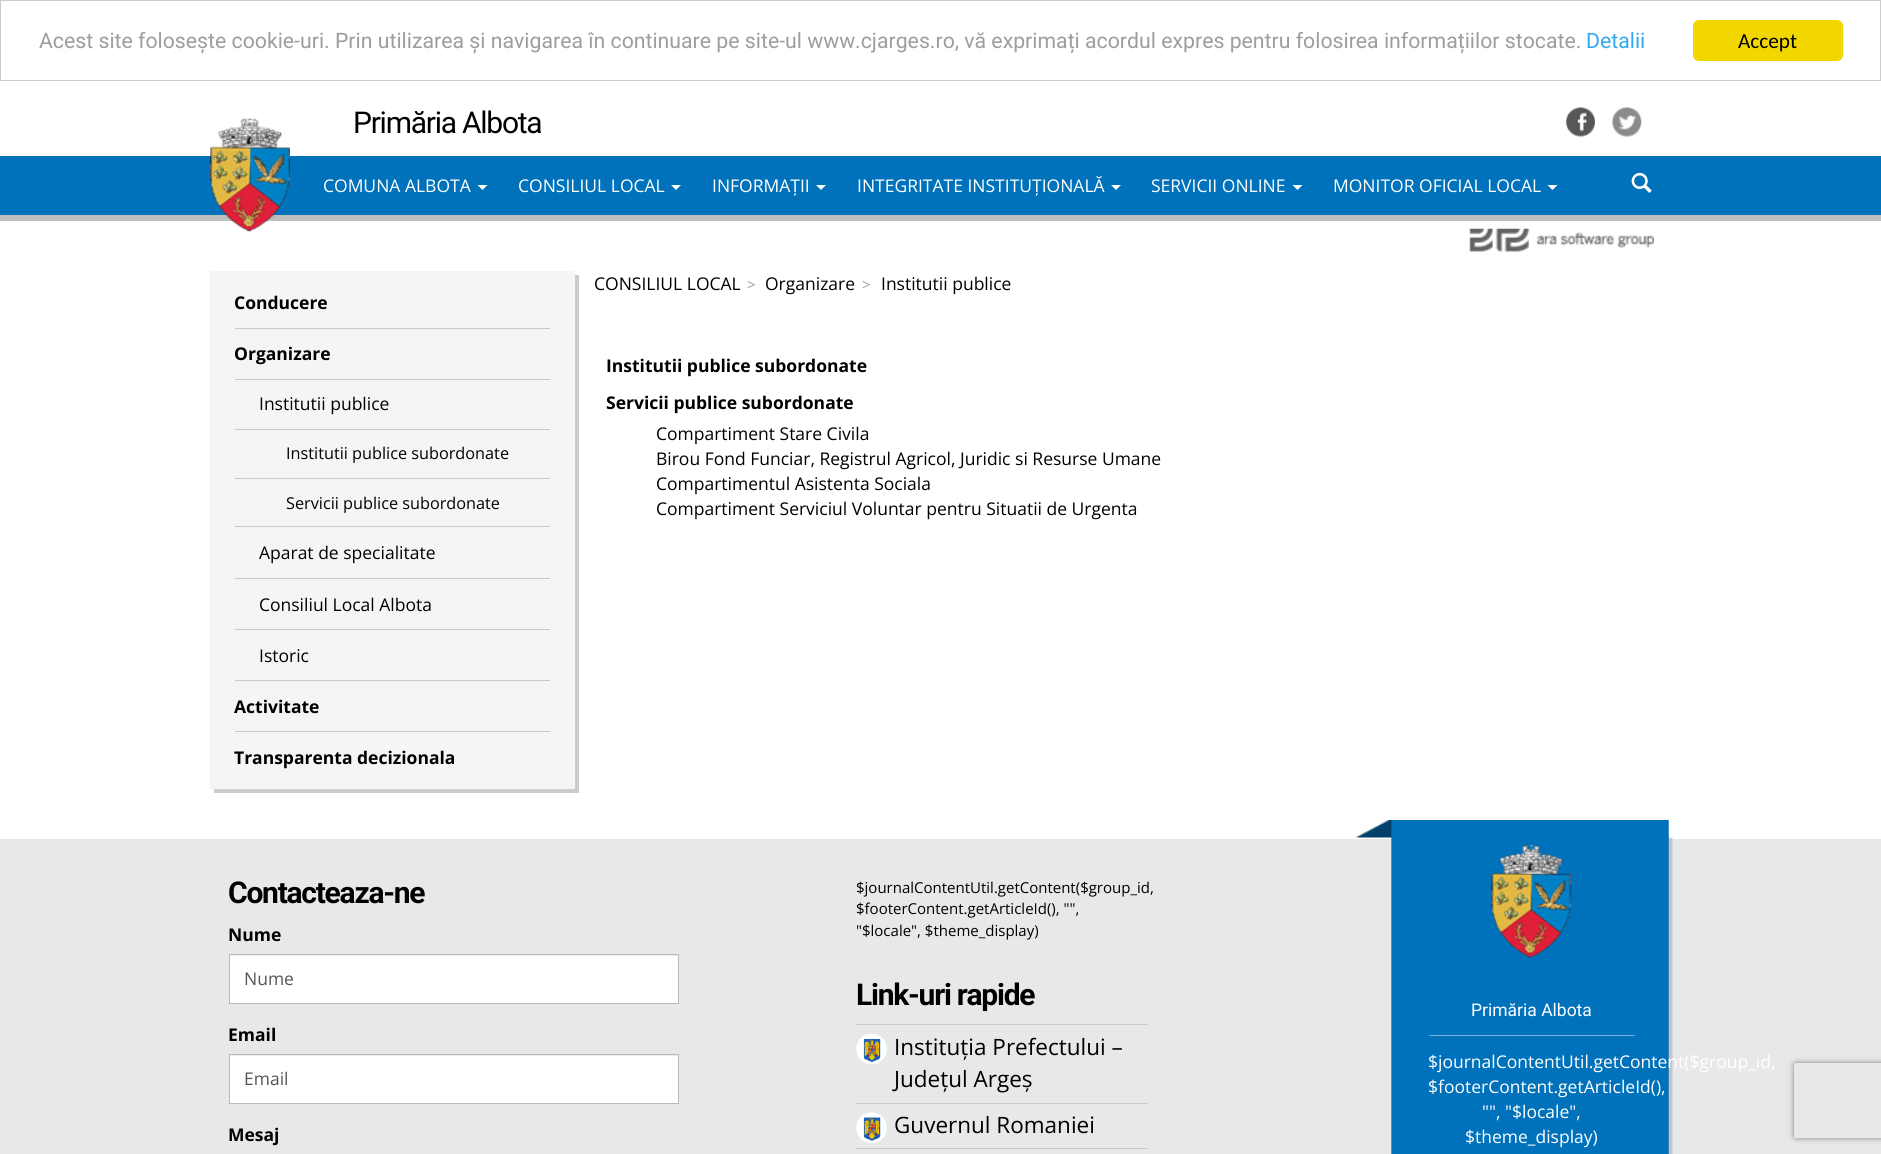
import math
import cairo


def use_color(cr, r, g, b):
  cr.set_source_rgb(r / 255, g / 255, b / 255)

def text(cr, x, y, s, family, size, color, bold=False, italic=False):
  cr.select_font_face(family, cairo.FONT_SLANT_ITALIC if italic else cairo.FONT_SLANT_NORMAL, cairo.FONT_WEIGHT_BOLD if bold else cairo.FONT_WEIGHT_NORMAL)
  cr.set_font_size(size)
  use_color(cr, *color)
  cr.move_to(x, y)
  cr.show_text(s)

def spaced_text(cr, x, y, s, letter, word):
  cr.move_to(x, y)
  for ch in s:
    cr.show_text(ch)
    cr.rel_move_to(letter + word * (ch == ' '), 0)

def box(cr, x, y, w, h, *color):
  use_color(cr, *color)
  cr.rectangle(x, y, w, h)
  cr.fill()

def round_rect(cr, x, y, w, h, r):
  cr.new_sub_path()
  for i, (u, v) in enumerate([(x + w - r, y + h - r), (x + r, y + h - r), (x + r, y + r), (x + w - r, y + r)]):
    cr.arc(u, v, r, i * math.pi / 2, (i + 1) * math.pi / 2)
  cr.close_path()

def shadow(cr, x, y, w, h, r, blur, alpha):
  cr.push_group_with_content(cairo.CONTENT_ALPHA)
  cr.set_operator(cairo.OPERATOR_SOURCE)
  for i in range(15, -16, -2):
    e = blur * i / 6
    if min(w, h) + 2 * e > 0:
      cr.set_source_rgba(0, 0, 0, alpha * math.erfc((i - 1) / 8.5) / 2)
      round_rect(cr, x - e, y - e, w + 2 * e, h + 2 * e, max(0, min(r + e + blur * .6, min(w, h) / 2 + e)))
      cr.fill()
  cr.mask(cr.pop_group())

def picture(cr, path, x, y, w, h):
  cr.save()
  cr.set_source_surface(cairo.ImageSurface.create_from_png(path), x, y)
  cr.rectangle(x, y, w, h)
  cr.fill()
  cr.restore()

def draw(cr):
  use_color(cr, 255, 255, 255)
  cr.paint()
  cr.rectangle(0.5, 0.5, 1880, 80)
  use_color(cr, 204, 204, 204)
  cr.set_line_width(1)
  cr.stroke()
  use_color(cr, 241, 214, 0)
  round_rect(cr, 1693, 20, 150, 41, 6)
  cr.fill()
  picture(cr, "img_01.png", 1566, 107, 29, 30)
  picture(cr, "img_02.png", 1612, 107, 30, 30)
  box(cr, 0, 156, 1881, 59, 0, 114, 188)
  box(cr, 0, 215, 1881, 6, 190, 190, 190)
  picture(cr, "img_03.png", 210, 118, 80, 114)
  use_color(cr, 255, 255, 255)
  cr.new_path()
  cr.move_to(477.5, 185)
  cr.line_to(487.5, 185)
  cr.line_to(482.5, 190)
  cr.close_path()
  cr.fill()
  cr.new_path()
  cr.move_to(671, 185)
  cr.line_to(681, 185)
  cr.line_to(676, 190)
  cr.close_path()
  cr.fill()
  cr.new_path()
  cr.move_to(816, 185)
  cr.line_to(826, 185)
  cr.line_to(821, 190)
  cr.close_path()
  cr.fill()
  cr.new_path()
  cr.move_to(1111, 185)
  cr.line_to(1121, 185)
  cr.line_to(1116, 190)
  cr.close_path()
  cr.fill()
  cr.new_path()
  cr.move_to(1292.5, 185)
  cr.line_to(1302.5, 185)
  cr.line_to(1297.5, 190)
  cr.close_path()
  cr.fill()
  cr.new_path()
  cr.move_to(1547.5, 185)
  cr.line_to(1557.5, 185)
  cr.line_to(1552.5, 190)
  cr.close_path()
  cr.fill()
  picture(cr, "img_04.png", 1631, 172, 21, 21)
  picture(cr, "img_05.png", 1469, 228, 185, 24)
  use_color(cr, 204, 204, 204)
  cr.new_path()
  cr.move_to(214, 789)
  cr.line_to(214, 793)
  cr.line_to(579, 793)
  cr.line_to(579, 275)
  cr.line_to(575, 275)
  cr.line_to(575, 789)
  cr.close_path()
  cr.fill()
  box(cr, 210, 271, 365, 518, 245, 245, 245)
  box(cr, 235, 328, 315, 1, 201, 201, 201)
  box(cr, 235, 379, 315, 1, 201, 201, 201)
  box(cr, 235, 429, 315, 1, 201, 201, 201)
  box(cr, 235, 478, 315, 1, 201, 201, 201)
  box(cr, 235, 526, 315, 1, 201, 201, 201)
  box(cr, 235, 578, 315, 1, 201, 201, 201)
  box(cr, 235, 629, 315, 1, 201, 201, 201)
  box(cr, 235, 680, 315, 1, 201, 201, 201)
  box(cr, 235, 731, 315, 1, 201, 201, 201)
  box(cr, 0, 839, 1881, 315, 232, 232, 232)
  box(cr, 230, 956, 448, 47, 255, 255, 255)
  box(cr, 230, 955, 448, 1, 236, 236, 236)
  cr.rectangle(229.5, 954.5, 449, 49)
  use_color(cr, 186, 186, 186)
  cr.stroke()
  box(cr, 230, 1056, 448, 47, 255, 255, 255)
  box(cr, 230, 1055, 448, 1, 236, 236, 236)
  cr.rectangle(229.5, 1054.5, 449, 49)
  use_color(cr, 186, 186, 186)
  cr.stroke()
  cr.save()
  cr.set_fill_rule(cairo.FILL_RULE_EVEN_ODD)
  cr.new_path()
  cr.move_to(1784, 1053)
  cr.line_to(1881, 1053)
  cr.line_to(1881, 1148)
  cr.line_to(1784, 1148)
  cr.close_path()
  cr.move_to(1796.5, 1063)
  cr.line_to(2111.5, 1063)
  cr.curve_to(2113, 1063, 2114, 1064, 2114, 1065.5)
  cr.line_to(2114, 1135.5)
  cr.curve_to(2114, 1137, 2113, 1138, 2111.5, 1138)
  cr.line_to(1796.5, 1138)
  cr.curve_to(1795, 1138, 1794, 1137, 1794, 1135.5)
  cr.line_to(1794, 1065.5)
  cr.curve_to(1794, 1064, 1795, 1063, 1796.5, 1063)
  cr.close_path()
  cr.clip()
  use_color(cr, 128, 128, 128)
  shadow(cr, 1794, 1063, 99, 75, 2.5, 3, 1)
  cr.restore()
  picture(cr, "img_06.png", 856, 1033, 31, 32)
  box(cr, 856, 1024, 292, 1, 203, 203, 203)
  box(cr, 856, 1103, 292, 1, 203, 203, 203)
  picture(cr, "img_07.png", 856, 1112, 31, 31)
  box(cr, 856, 1148, 292, 1, 203, 203, 203)
  picture(cr, "img_08.png", 1356, 820, 317, 334)
  picture(cr, "img_09.png", 1491, 845, 81, 113)
  box(cr, 1429, 1035, 206, 1, 119, 176, 213)
  text(cr, 39, 48, "Acest site folosește cookie-uri. Prin utilizarea și navigarea în continuare pe site-ul www.cjarges.ro, vă exprimați acordul expres pentru folosirea informațiilor stocate.", "Roboto", 21.25, (157, 157, 157))
  text(cr, 1586, 48, "Detalii", "Roboto", 21.25, (49, 168, 240))
  text(cr, 1738, 48, "Accept", "Carlito", 21.25, (0, 0, 0))
  cr.select_font_face("Roboto")
  cr.set_font_size(30)
  spaced_text(cr, 353, 133, "Primăria Albota", -1.25, 0)
  text(cr, 323, 192, "COMUNA ALBOTA", "Open Sans", 17.5, (255, 255, 255))
  text(cr, 518, 192, "CONSILIUL LOCAL", "Open Sans", 17.5, (255, 255, 255))
  text(cr, 712, 192, "INFORMAȚII", "Open Sans", 17.5, (255, 255, 255))
  text(cr, 857, 192, "INTEGRITATE INSTITUȚIONALĂ", "Open Sans", 17.5, (255, 255, 255))
  text(cr, 1151, 192, "SERVICII ONLINE", "Open Sans", 17.5, (255, 255, 255))
  text(cr, 1333, 192, "MONITOR OFICIAL LOCAL", "Open Sans", 17.5, (255, 255, 255))
  text(cr, 234, 309, "Conducere", "Open Sans", 17.5, (0, 0, 0), bold=True)
  text(cr, 234, 360, "Organizare", "Open Sans", 17.5, (0, 0, 0), bold=True)
  text(cr, 259, 410, "Institutii publice", "Open Sans", 17.5, (0, 0, 0))
  text(cr, 286, 459, "Institutii publice subordonate", "Open Sans", 16.25, (0, 0, 0))
  text(cr, 286, 509, "Servicii publice subordonate", "Open Sans", 16.25, (0, 0, 0))
  text(cr, 259, 559, "Aparat de specialitate", "Open Sans", 17.5, (0, 0, 0))
  text(cr, 259, 611, "Consiliul Local Albota", "Open Sans", 17.5, (0, 0, 0))
  text(cr, 259, 662, "Istoric", "Open Sans", 17.5, (0, 0, 0))
  text(cr, 234, 713, "Activitate", "Open Sans", 17.5, (0, 0, 0), bold=True)
  text(cr, 234, 764, "Transparenta decizionala", "Open Sans", 17.5, (0, 0, 0), bold=True)
  text(cr, 594, 290, "CONSILIUL LOCAL", "Open Sans", 17.5, (0, 0, 0))
  text(cr, 747, 290, ">", "Open Sans", 15, (157, 157, 157))
  text(cr, 765, 290, "Organizare", "Open Sans", 17.5, (0, 0, 0))
  text(cr, 862, 290, ">", "Open Sans", 15, (157, 157, 157))
  text(cr, 881, 290, "Institutii publice", "Open Sans", 17.5, (0, 0, 0))
  text(cr, 606, 372, "Institutii publice subordonate", "Open Sans", 17.5, (0, 0, 0), bold=True)
  text(cr, 606, 409, "Servicii publice subordonate", "Open Sans", 17.5, (0, 0, 0), bold=True)
  text(cr, 656, 440, "Compartiment Stare Civila", "Open Sans", 17.5, (0, 0, 0))
  text(cr, 656, 465, "Birou Fond Funciar, Registrul Agricol, Juridic si Resurse Umane", "Open Sans", 17.5, (0, 0, 0))
  text(cr, 656, 490, "Compartimentul Asistenta Sociala", "Open Sans", 17.5, (0, 0, 0))
  text(cr, 656, 515, "Compartiment Serviciul Voluntar pentru Situatii de Urgenta", "Open Sans", 17.5, (0, 0, 0))
  cr.select_font_face("Roboto", cairo.FONT_SLANT_NORMAL, cairo.FONT_WEIGHT_BOLD)
  cr.set_font_size(30)
  spaced_text(cr, 228, 903, "Contacteaza-ne", -1.25, 0)
  text(cr, 228, 941, "Nume", "Open Sans", 17.5, (0, 0, 0), bold=True)
  text(cr, 244, 985, "Nume", "Open Sans", 17.5, (85, 85, 85))
  text(cr, 228, 1041, "Email", "Open Sans", 17.5, (0, 0, 0), bold=True)
  text(cr, 244, 1085, "Email", "Open Sans", 17.5, (85, 85, 85))
  text(cr, 228, 1141, "Mesaj", "Open Sans", 17.5, (0, 0, 0), bold=True)
  text(cr, 856, 893, "$journalContentUtil.getContent($group_id,", "Open Sans", 15, (0, 0, 0))
  text(cr, 856, 914, "$footerContent.getArticleId(), \"\",", "Open Sans", 15, (0, 0, 0))
  text(cr, 856, 936, "\"$locale\", $theme_display)", "Open Sans", 15, (0, 0, 0))
  cr.select_font_face("Roboto", cairo.FONT_SLANT_NORMAL, cairo.FONT_WEIGHT_BOLD)
  cr.set_font_size(30)
  spaced_text(cr, 856, 1005, "Link-uri rapide", -1.25, 0)
  text(cr, 894, 1055, "Instituția Prefectului –", "Open Sans", 22.5, (0, 0, 0))
  text(cr, 894, 1087, "Județul Argeș", "Open Sans", 22.5, (0, 0, 0))
  text(cr, 894, 1133, "Guvernul Romaniei", "Open Sans", 22.5, (0, 0, 0))
  text(cr, 1471, 1016, "Primăria Albota", "Roboto", 17.5, (255, 255, 255))
  text(cr, 1428, 1068, "$journalContentUtil.getContent($group_id,", "Open Sans", 17.5, (255, 255, 255))
  text(cr, 1428, 1093, "$footerContent.getArticleId(),", "Open Sans", 17.5, (255, 255, 255))
  text(cr, 1482, 1118, "\"\", \"$locale\",", "Open Sans", 17.5, (255, 255, 255))
  text(cr, 1465, 1143, "$theme_display)", "Open Sans", 17.5, (255, 255, 255))


surface = cairo.ImageSurface(cairo.FORMAT_RGB24, 1881, 1154)
cr = cairo.Context(surface)
options = cairo.FontOptions()
options.set_hint_metrics(cairo.HINT_METRICS_OFF)
options.set_hint_style(cairo.HINT_STYLE_NONE)
cr.set_font_options(options)
cr.set_miter_limit(4)
draw(cr)
surface.write_to_png("out.png")
